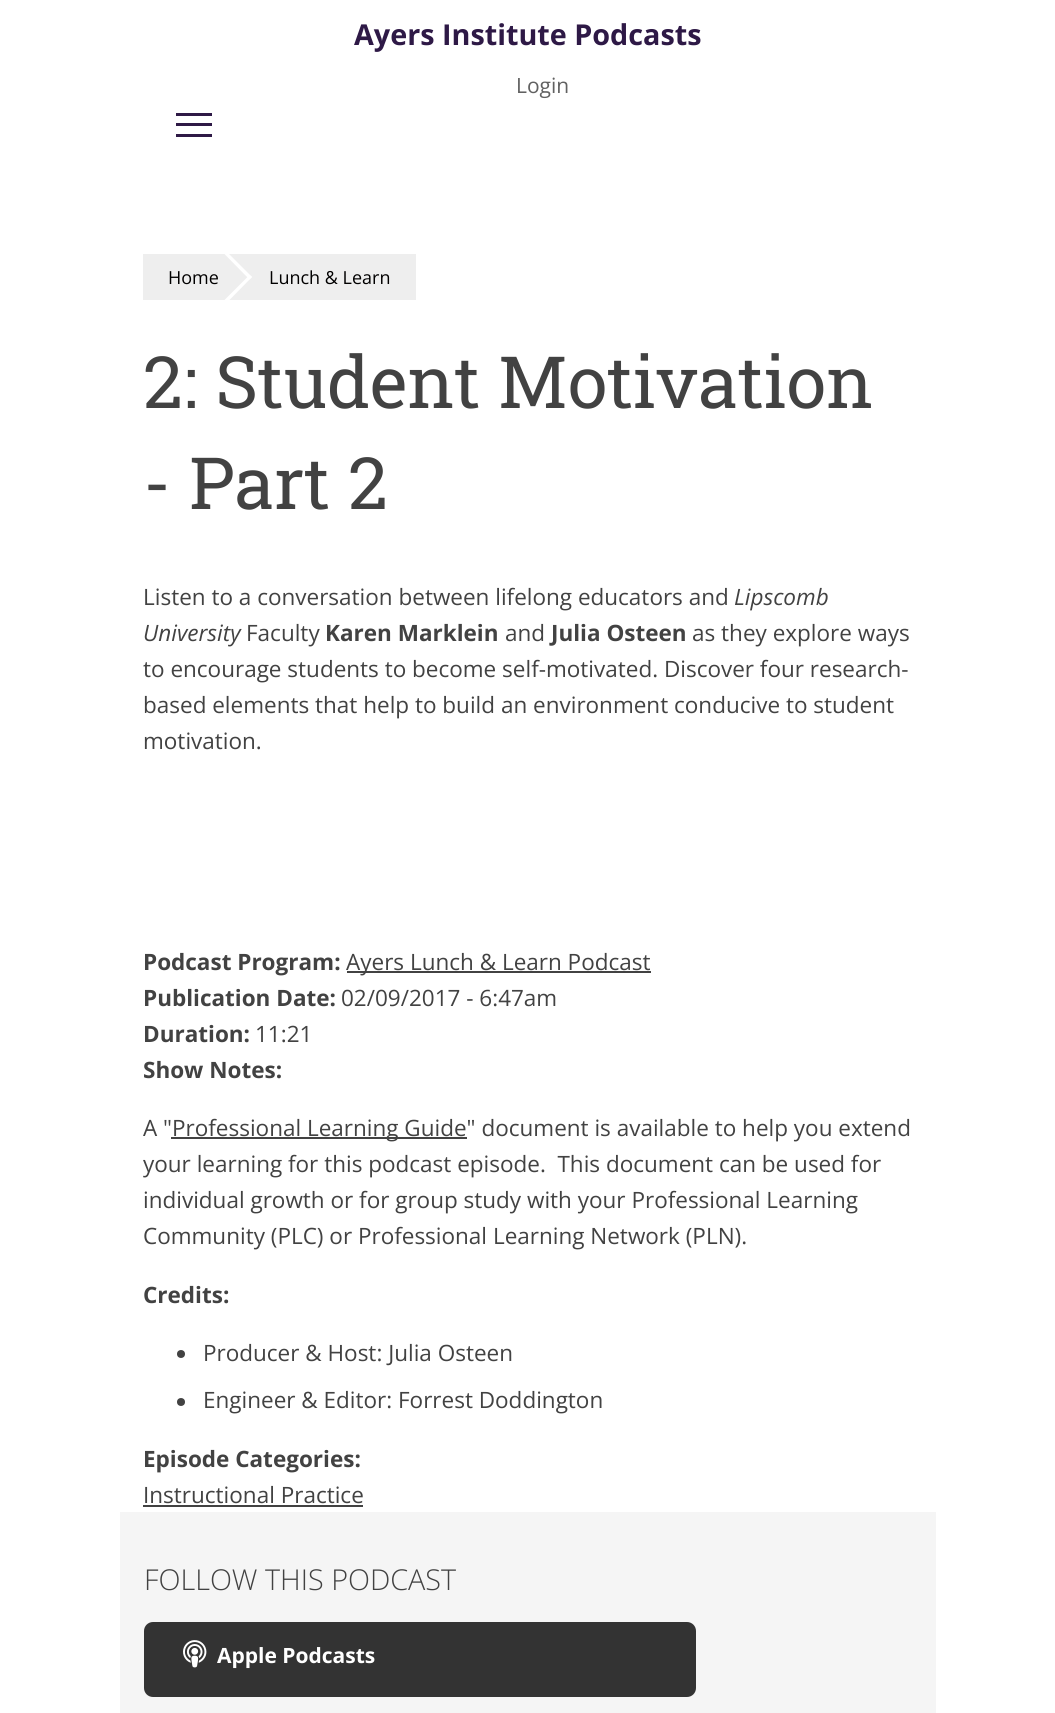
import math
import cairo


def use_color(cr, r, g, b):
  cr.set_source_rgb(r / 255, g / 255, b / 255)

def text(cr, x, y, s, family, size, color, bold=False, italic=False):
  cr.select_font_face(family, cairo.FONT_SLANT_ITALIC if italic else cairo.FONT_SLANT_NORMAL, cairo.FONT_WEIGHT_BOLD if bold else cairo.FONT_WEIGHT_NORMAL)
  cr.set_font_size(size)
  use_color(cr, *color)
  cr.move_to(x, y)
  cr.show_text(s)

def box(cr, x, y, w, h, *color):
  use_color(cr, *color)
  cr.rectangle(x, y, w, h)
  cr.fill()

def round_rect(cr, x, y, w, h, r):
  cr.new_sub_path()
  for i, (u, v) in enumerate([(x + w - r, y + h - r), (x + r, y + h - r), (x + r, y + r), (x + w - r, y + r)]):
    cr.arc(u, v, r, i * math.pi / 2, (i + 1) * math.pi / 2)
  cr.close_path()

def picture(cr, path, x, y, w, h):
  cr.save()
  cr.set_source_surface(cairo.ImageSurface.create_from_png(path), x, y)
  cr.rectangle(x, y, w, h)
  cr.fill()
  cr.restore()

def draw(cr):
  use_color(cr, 255, 255, 255)
  cr.paint()
  box(cr, 176, 123, 36, 3, 46, 25, 70)
  box(cr, 176, 113, 36, 3, 46, 25, 70)
  box(cr, 176, 134, 36, 3, 46, 25, 70)
  box(cr, 143, 254, 273, 46, 238, 238, 238)
  cr.save()
  cr.rectangle(143, 254, 273, 46)
  cr.clip()
  use_color(cr, 255, 255, 255)
  cr.new_path()
  cr.move_to(224.5, 249.5)
  cr.line_to(252, 277)
  cr.line_to(249.5, 279.5)
  cr.line_to(222, 251.5)
  cr.close_path()
  cr.fill()
  cr.new_path()
  cr.move_to(249.5, 275)
  cr.line_to(252, 277)
  cr.line_to(224.5, 305)
  cr.line_to(222, 302.5)
  cr.close_path()
  cr.fill()
  cr.restore()
  box(cr, 347, 971, 304, 2, 66, 66, 66)
  box(cr, 171, 1137, 296, 2, 66, 66, 66)
  cr.arc(181, 1354, 4, 0, 2 * math.pi)
  cr.fill()
  cr.arc(181, 1402, 4, 0, 2 * math.pi)
  cr.fill()
  box(cr, 143, 1505, 220, 2, 66, 66, 66)
  box(cr, 120, 1512, 816, 201, 245, 245, 245)
  use_color(cr, 51, 51, 51)
  round_rect(cr, 145.5, 1623.5, 549, 72, 7.5)
  cr.fill_preserve()
  cr.set_line_width(3)
  cr.stroke()
  picture(cr, "img_01.png", 183, 1640, 24, 28)
  text(cr, 354, 45, "Ayers Institute Podcasts", "Open Sans", 28.75, (46, 25, 70), bold=True)
  text(cr, 516, 93, "Login", "Open Sans", 21, (97, 97, 97))
  text(cr, 168, 284, "Home", "Open Sans", 18, (1, 0, 0))
  text(cr, 269, 284, "Lunch & Learn", "Open Sans", 18, (1, 0, 0))
  text(cr, 143, 408, "2: Student Motivation", "Roboto Slab", 72, (66, 66, 66))
  text(cr, 143, 509, "- Part 2", "Roboto Slab", 72, (66, 66, 66))
  text(cr, 143, 605, "Listen to a conversation between lifelong educators and", "Open Sans", 22.5, (66, 66, 66))
  text(cr, 734, 605, "Lipscomb", "Open Sans", 22.5, (66, 66, 66), italic=True)
  text(cr, 143, 641, "University", "Open Sans", 22.5, (66, 66, 66), italic=True)
  text(cr, 246, 641, "Faculty", "Open Sans", 22.5, (66, 66, 66))
  text(cr, 325, 641, "Karen Marklein", "Open Sans", 22.5, (66, 66, 66), bold=True)
  text(cr, 505, 641, "and", "Open Sans", 22.5, (66, 66, 66))
  text(cr, 551, 641, "Julia Osteen", "Open Sans", 22.5, (66, 66, 66), bold=True)
  text(cr, 692, 641, "as they explore ways", "Open Sans", 22.5, (66, 66, 66))
  text(cr, 143, 677, "to encourage students to become self-motivated. Discover four research-", "Open Sans", 22.5, (66, 66, 66))
  text(cr, 143, 713, "based elements that help to build an environment conducive to student", "Open Sans", 22.5, (66, 66, 66))
  text(cr, 143, 749, "motivation.", "Open Sans", 22.5, (66, 66, 66))
  text(cr, 143, 970, "Podcast Program:", "Open Sans", 22.5, (66, 66, 66), bold=True)
  text(cr, 346, 970, "Ayers Lunch & Learn Podcast", "Open Sans", 22.5, (66, 66, 66))
  text(cr, 143, 1006, "Publication Date:", "Open Sans", 22.5, (66, 66, 66), bold=True)
  text(cr, 341, 1006, "02/09/2017 - 6:47am", "Open Sans", 22.5, (66, 66, 66))
  text(cr, 143, 1042, "Duration:", "Open Sans", 22.5, (66, 66, 66), bold=True)
  text(cr, 255, 1042, "11:21", "Open Sans", 22.5, (66, 66, 66))
  text(cr, 143, 1078, "Show Notes:", "Open Sans", 22.5, (66, 66, 66), bold=True)
  text(cr, 143, 1136, "A \"", "Open Sans", 22.5, (66, 66, 66))
  text(cr, 172, 1136, "Professional Learning Guide\" document is available to help you extend", "Open Sans", 22.5, (66, 66, 66))
  text(cr, 143, 1172, "your learning for this podcast episode.  This document can be used for", "Open Sans", 22.5, (66, 66, 66))
  text(cr, 143, 1208, "individual growth or for group study with your Professional Learning", "Open Sans", 22.5, (66, 66, 66))
  text(cr, 143, 1244, "Community (PLC) or Professional Learning Network (PLN).", "Open Sans", 22.5, (66, 66, 66))
  text(cr, 143, 1303, "Credits:", "Open Sans", 22.5, (66, 66, 66), bold=True)
  text(cr, 203, 1361, "Producer & Host: Julia Osteen", "Open Sans", 22.5, (66, 66, 66))
  text(cr, 203, 1408, "Engineer & Editor: Forrest Doddington", "Open Sans", 22.5, (66, 66, 66))
  text(cr, 143, 1467, "Episode Categories:", "Open Sans", 22.5, (66, 66, 66), bold=True)
  text(cr, 143, 1503, "Instructional Practice", "Open Sans", 22.5, (66, 66, 66))
  text(cr, 144, 1590, "FOLLOW THIS PODCAST", "Open Sans Light", 28.75, (66, 66, 66))
  text(cr, 217, 1663, "Apple Podcasts", "Open Sans", 21, (255, 255, 255), bold=True)


surface = cairo.ImageSurface(cairo.FORMAT_RGB24, 1055, 1713)
cr = cairo.Context(surface)
options = cairo.FontOptions()
options.set_hint_metrics(cairo.HINT_METRICS_OFF)
options.set_hint_style(cairo.HINT_STYLE_NONE)
cr.set_font_options(options)
cr.set_miter_limit(4)
draw(cr)
surface.write_to_png("out.png")
